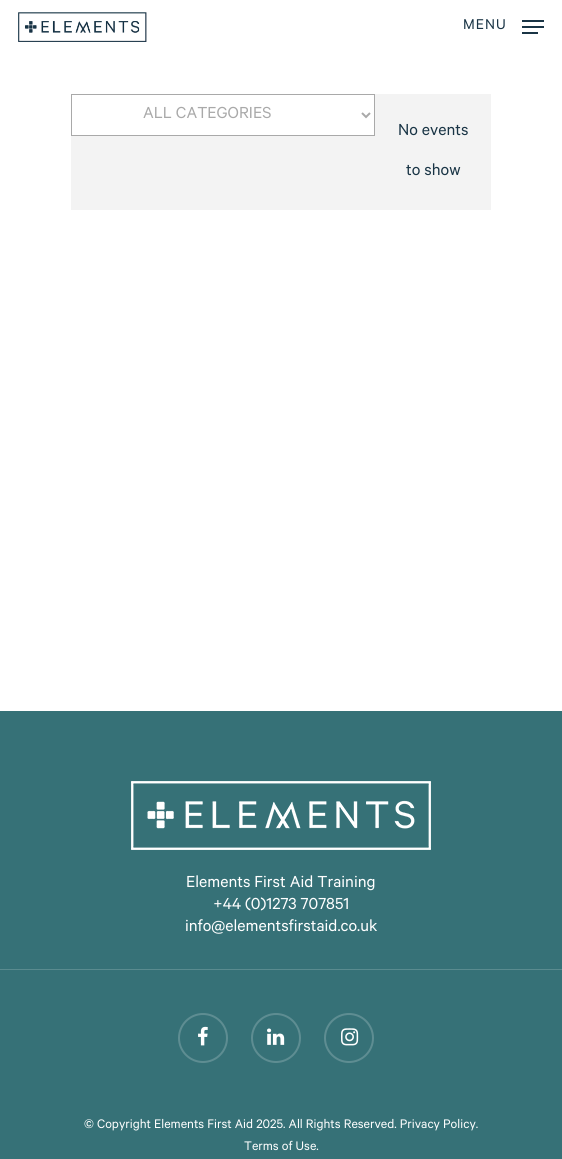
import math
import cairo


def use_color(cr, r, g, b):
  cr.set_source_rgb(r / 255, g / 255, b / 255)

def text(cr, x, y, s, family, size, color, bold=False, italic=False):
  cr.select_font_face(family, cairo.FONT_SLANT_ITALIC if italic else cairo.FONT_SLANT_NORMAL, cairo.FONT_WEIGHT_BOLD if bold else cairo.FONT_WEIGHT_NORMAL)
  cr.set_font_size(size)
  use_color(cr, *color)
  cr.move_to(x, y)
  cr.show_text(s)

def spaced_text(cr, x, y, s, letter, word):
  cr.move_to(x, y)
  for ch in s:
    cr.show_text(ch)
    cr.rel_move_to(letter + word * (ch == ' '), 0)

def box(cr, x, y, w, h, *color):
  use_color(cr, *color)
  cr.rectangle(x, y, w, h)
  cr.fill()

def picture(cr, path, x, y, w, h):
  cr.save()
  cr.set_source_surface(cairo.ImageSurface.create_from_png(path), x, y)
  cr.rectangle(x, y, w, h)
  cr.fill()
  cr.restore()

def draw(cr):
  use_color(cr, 255, 255, 255)
  cr.paint()
  picture(cr, "img_01.png", 18, 12, 129, 30)
  box(cr, 522, 20, 22, 2, 25, 52, 69)
  box(cr, 522, 32, 16, 2, 25, 52, 69)
  box(cr, 522, 26, 22, 2, 25, 52, 69)
  box(cr, 71, 94, 420, 116, 243, 243, 243)
  use_color(cr, 255, 255, 255)
  cr.rectangle(71.5, 94.5, 303, 41)
  cr.fill_preserve()
  use_color(cr, 169, 169, 169)
  cr.set_line_width(1)
  cr.stroke()
  cr.new_path()
  cr.move_to(362, 113)
  cr.line_to(366, 117)
  cr.line_to(370, 113)
  cr.set_line_width(2)
  cr.stroke()
  box(cr, 0, 711, 562, 448, 54, 113, 119)
  picture(cr, "img_02.png", 131, 781, 300, 69)
  box(cr, 0, 969, 562, 1, 90, 139, 143)
  picture(cr, "img_03.png", 198, 1026, 10, 20)
  cr.arc(203, 1038, 24, 0, 2 * math.pi)
  use_color(cr, 94, 141, 146)
  cr.stroke()
  picture(cr, "img_04.png", 267, 1028, 18, 17)
  cr.arc(276, 1038, 24, 0, 2 * math.pi)
  cr.stroke()
  picture(cr, "img_05.png", 341, 1028, 18, 18)
  cr.arc(349, 1038, 24, 0, 2 * math.pi)
  cr.stroke()
  cr.select_font_face("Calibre")
  cr.set_font_size(16)
  use_color(cr, 25, 52, 69)
  spaced_text(cr, 463, 29, "MENU", 1, 0)
  text(cr, 143, 118, "ALL CATEGORIES", "Calibre", 18, (169, 169, 169))
  text(cr, 398, 135, "No events", "Calibre", 18, (25, 52, 69))
  text(cr, 406, 175, "to show", "Calibre", 18, (25, 52, 69))
  text(cr, 186, 887, "Elements First Aid Training", "Calibre", 18, (255, 255, 255))
  text(cr, 213, 909, "+44 (0)1273 707851", "Calibre", 18, (255, 255, 255))
  text(cr, 185, 931, "info@elementsfirstaid.co.uk", "Calibre", 18, (255, 255, 255))
  text(cr, 84, 1128, "© Copyright Elements First Aid 2025. All Rights Reserved. Privacy Policy.", "Calibre", 14, (255, 255, 255))
  text(cr, 244, 1150, "Terms of Use.", "Calibre", 14, (255, 255, 255))


surface = cairo.ImageSurface(cairo.FORMAT_RGB24, 562, 1159)
cr = cairo.Context(surface)
options = cairo.FontOptions()
options.set_hint_metrics(cairo.HINT_METRICS_OFF)
options.set_hint_style(cairo.HINT_STYLE_NONE)
cr.set_font_options(options)
cr.set_miter_limit(4)
draw(cr)
surface.write_to_png("out.png")
